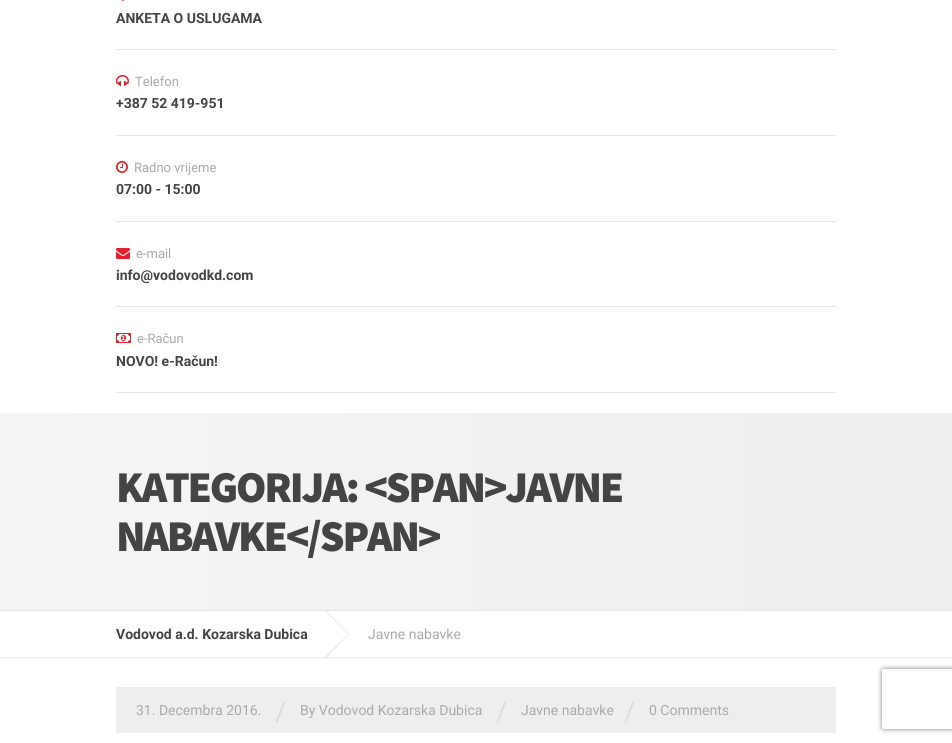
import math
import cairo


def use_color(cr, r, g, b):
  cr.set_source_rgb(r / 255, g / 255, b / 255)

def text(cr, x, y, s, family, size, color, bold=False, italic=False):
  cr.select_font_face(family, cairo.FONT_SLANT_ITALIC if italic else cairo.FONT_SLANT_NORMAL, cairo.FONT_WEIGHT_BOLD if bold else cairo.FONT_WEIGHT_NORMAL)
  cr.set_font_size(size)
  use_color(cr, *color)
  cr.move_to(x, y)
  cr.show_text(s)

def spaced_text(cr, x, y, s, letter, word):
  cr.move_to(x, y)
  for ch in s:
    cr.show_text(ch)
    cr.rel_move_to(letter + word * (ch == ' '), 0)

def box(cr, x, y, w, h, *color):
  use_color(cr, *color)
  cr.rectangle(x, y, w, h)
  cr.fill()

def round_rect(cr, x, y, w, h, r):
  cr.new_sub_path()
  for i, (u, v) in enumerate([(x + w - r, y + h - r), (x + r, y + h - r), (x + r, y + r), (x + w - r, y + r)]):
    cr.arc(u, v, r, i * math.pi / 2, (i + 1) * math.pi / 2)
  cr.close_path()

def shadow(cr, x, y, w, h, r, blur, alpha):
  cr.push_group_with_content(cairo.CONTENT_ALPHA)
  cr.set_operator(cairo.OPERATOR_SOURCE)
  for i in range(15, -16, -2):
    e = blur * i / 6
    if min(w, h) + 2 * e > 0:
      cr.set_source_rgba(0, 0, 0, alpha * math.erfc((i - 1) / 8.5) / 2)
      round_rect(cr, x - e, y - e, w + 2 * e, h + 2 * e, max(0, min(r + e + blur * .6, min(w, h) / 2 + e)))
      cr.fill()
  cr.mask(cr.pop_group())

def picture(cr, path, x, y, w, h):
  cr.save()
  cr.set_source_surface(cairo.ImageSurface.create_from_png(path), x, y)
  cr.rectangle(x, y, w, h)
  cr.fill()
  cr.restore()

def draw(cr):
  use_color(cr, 255, 255, 255)
  cr.paint()
  box(cr, 116, 49, 720, 1, 230, 230, 230)
  picture(cr, "img_01.png", 121, 0, 4, 1)
  box(cr, 116, 135, 720, 1, 230, 230, 230)
  picture(cr, "img_02.png", 116, 75, 13, 11)
  box(cr, 116, 221, 720, 1, 230, 230, 230)
  picture(cr, "img_03.png", 116, 161, 12, 12)
  box(cr, 116, 306, 720, 1, 230, 230, 230)
  picture(cr, "img_04.png", 116, 248, 14, 11)
  box(cr, 116, 392, 720, 1, 230, 230, 230)
  picture(cr, "img_05.png", 116, 333, 15, 10)
  gradient = cairo.LinearGradient(0, 512, 952, 511)
  gradient.add_color_stop_rgba(0, 0.961, 0.961, 0.961, 1)
  gradient.add_color_stop_rgba(1, 0.933, 0.933, 0.933, 1)
  cr.set_source(gradient)
  cr.rectangle(0, 413, 952, 197)
  cr.fill()
  cr.save()
  cr.set_fill_rule(cairo.FILL_RULE_EVEN_ODD)
  cr.new_path()
  cr.move_to(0, 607)
  cr.line_to(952, 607)
  cr.line_to(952, 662)
  cr.line_to(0, 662)
  cr.close_path()
  cr.move_to(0, 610)
  cr.line_to(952, 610)
  cr.line_to(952, 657)
  cr.line_to(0, 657)
  cr.close_path()
  cr.clip()
  use_color(cr, 230, 230, 230)
  shadow(cr, 0, 611, 952, 47, 0, 1, 1)
  cr.restore()
  box(cr, 0, 610, 952, 1, 230, 230, 230)
  cr.new_path()
  cr.move_to(325, 611)
  cr.line_to(326, 610.5)
  cr.line_to(349, 634)
  cr.line_to(348.5, 634.5)
  cr.close_path()
  cr.fill()
  cr.new_path()
  cr.move_to(348.5, 634)
  cr.line_to(349, 634.5)
  cr.line_to(326, 658)
  cr.line_to(325, 657)
  cr.close_path()
  cr.fill()
  box(cr, 116, 687, 720, 46, 238, 238, 238)
  cr.save()
  cr.set_fill_rule(cairo.FILL_RULE_EVEN_ODD)
  cr.new_path()
  cr.move_to(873, 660)
  cr.line_to(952, 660)
  cr.line_to(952, 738)
  cr.line_to(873, 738)
  cr.close_path()
  cr.move_to(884, 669)
  cr.line_to(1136, 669)
  cr.curve_to(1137, 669, 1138, 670, 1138, 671)
  cr.line_to(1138, 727)
  cr.curve_to(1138, 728, 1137, 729, 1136, 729)
  cr.line_to(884, 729)
  cr.curve_to(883, 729, 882, 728, 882, 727)
  cr.line_to(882, 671)
  cr.curve_to(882, 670, 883, 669, 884, 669)
  cr.close_path()
  cr.clip()
  use_color(cr, 128, 128, 128)
  shadow(cr, 882, 669, 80, 60, 2, 2.5, 1)
  cr.restore()
  text(cr, 116, 23, "ANKETA O USLUGAMA", "Roboto", 14, (68, 68, 68), bold=True)
  text(cr, 135, 86, "Telefon", "Roboto", 13, (170, 170, 170))
  text(cr, 116, 108, "+387 52 419-951", "Roboto", 14, (68, 68, 68), bold=True)
  text(cr, 134, 172, "Radno vrijeme", "Roboto", 13, (170, 170, 170))
  text(cr, 116, 194, "07:00 - 15:00", "Roboto", 14, (68, 68, 68), bold=True)
  text(cr, 136, 258, "e-mail", "Roboto", 13, (170, 170, 170))
  text(cr, 116, 280, "info@vodovodkd.com", "Roboto", 14, (68, 68, 68), bold=True)
  text(cr, 137, 343, "e-Račun", "Roboto", 13, (170, 170, 170))
  text(cr, 116, 366, "NOVO! e-Račun!", "Roboto", 14, (68, 68, 68), bold=True)
  cr.select_font_face("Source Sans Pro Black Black")
  cr.set_font_size(44)
  spaced_text(cr, 116, 502, "KATEGORIJA: <SPAN>JAVNE", -2.2, 0)
  spaced_text(cr, 116, 551, "NABAVKE</SPAN>", -2.2, 0)
  text(cr, 116, 639, "Vodovod a.d. Kozarska Dubica", "Roboto", 14, (68, 68, 68), bold=True)
  text(cr, 368, 639, "Javne nabavke", "Roboto", 14, (170, 170, 170))
  text(cr, 136, 715, "31. Decembra 2016.", "Roboto", 14, (170, 170, 170))
  text(cr, 275, 721, "/", "Roboto", 28, (221, 221, 221))
  text(cr, 300, 715, "By Vodovod Kozarska Dubica", "Roboto", 14, (170, 170, 170))
  text(cr, 496, 721, "/", "Roboto", 28, (221, 221, 221))
  text(cr, 521, 715, "Javne nabavke", "Roboto", 14, (170, 170, 170))
  text(cr, 624, 721, "/", "Roboto", 28, (221, 221, 221))
  text(cr, 649, 715, "0 Comments", "Roboto", 14, (170, 170, 170))


surface = cairo.ImageSurface(cairo.FORMAT_RGB24, 952, 743)
cr = cairo.Context(surface)
options = cairo.FontOptions()
options.set_hint_metrics(cairo.HINT_METRICS_OFF)
options.set_hint_style(cairo.HINT_STYLE_NONE)
cr.set_font_options(options)
cr.set_miter_limit(4)
draw(cr)
surface.write_to_png("out.png")
